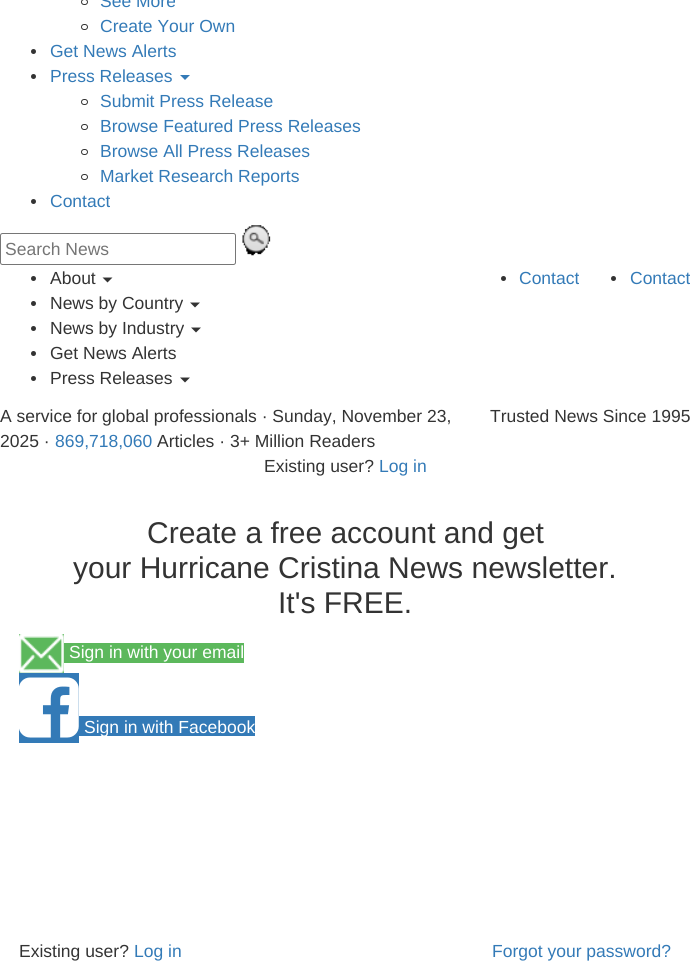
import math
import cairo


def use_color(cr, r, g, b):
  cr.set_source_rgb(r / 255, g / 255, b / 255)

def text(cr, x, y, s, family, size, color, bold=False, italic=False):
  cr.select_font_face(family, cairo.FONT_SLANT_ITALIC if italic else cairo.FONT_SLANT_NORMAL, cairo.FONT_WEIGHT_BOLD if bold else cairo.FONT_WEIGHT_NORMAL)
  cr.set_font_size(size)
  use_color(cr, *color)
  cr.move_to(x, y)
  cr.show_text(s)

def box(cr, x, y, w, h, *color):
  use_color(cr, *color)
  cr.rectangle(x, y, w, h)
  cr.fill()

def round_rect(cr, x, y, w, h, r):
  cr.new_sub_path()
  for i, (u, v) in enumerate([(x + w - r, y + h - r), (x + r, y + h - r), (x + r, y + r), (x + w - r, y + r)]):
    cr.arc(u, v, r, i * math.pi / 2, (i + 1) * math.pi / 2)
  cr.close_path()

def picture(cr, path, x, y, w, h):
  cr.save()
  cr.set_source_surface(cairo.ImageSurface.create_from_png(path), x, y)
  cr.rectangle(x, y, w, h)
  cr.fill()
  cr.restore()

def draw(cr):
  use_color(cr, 255, 255, 255)
  cr.paint()
  round_rect(cr, 81.5, -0.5, 6, 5, 2.5)
  use_color(cr, 51, 51, 51)
  cr.set_line_width(1)
  cr.stroke()
  round_rect(cr, 81.5, 24.5, 6, 5, 2.5)
  cr.stroke()
  cr.arc(33.5, 51.5, 2.5, 0, 2 * math.pi)
  cr.fill()
  cr.arc(33.5, 76.5, 2.5, 0, 2 * math.pi)
  cr.fill()
  use_color(cr, 51, 122, 183)
  cr.new_path()
  cr.move_to(180, 75)
  cr.line_to(190, 75)
  cr.line_to(185, 80)
  cr.close_path()
  cr.fill()
  round_rect(cr, 81.5, 99.5, 6, 5, 2.5)
  use_color(cr, 51, 51, 51)
  cr.stroke()
  round_rect(cr, 81.5, 124.5, 6, 5, 2.5)
  cr.stroke()
  round_rect(cr, 81.5, 149.5, 6, 5, 2.5)
  cr.stroke()
  round_rect(cr, 81.5, 174.5, 6, 5, 2.5)
  cr.stroke()
  cr.arc(33.5, 201.5, 2.5, 0, 2 * math.pi)
  cr.fill()
  round_rect(cr, 0.5, 233.5, 235, 31, 2)
  use_color(cr, 118, 118, 118)
  cr.stroke()
  picture(cr, "img_01.png", 242, 225, 29, 31)
  use_color(cr, 51, 51, 51)
  cr.arc(503.5, 278.5, 2.5, 0, 2 * math.pi)
  cr.fill()
  cr.arc(613.5, 278.5, 2.5, 0, 2 * math.pi)
  cr.fill()
  cr.arc(33.5, 278.5, 2.5, 0, 2 * math.pi)
  cr.fill()
  cr.new_path()
  cr.move_to(102.5, 277.5)
  cr.line_to(112.5, 277.5)
  cr.line_to(107.5, 282.5)
  cr.close_path()
  cr.fill()
  cr.arc(33.5, 303.5, 2.5, 0, 2 * math.pi)
  cr.fill()
  cr.new_path()
  cr.move_to(190, 302.5)
  cr.line_to(200, 302.5)
  cr.line_to(195, 307.5)
  cr.close_path()
  cr.fill()
  cr.arc(33.5, 328.5, 2.5, 0, 2 * math.pi)
  cr.fill()
  cr.new_path()
  cr.move_to(191, 327.5)
  cr.line_to(201, 327.5)
  cr.line_to(196, 332.5)
  cr.close_path()
  cr.fill()
  cr.arc(33.5, 353.5, 2.5, 0, 2 * math.pi)
  cr.fill()
  cr.arc(33.5, 378.5, 2.5, 0, 2 * math.pi)
  cr.fill()
  cr.new_path()
  cr.move_to(180, 377.5)
  cr.line_to(190, 377.5)
  cr.line_to(185, 382.5)
  cr.close_path()
  cr.fill()
  box(cr, 19, 634, 45, 39, 92, 184, 92)
  picture(cr, "img_02.png", 19, 634, 45, 39)
  box(cr, 64, 643, 180, 20, 92, 184, 92)
  box(cr, 19, 673, 60, 70, 51, 122, 183)
  box(cr, 79, 716, 176, 20, 51, 122, 183)
  picture(cr, "img_03.png", 19, 677, 60, 61)
  text(cr, 100, 7, "See More", "Liberation Sans", 17.5, (51, 122, 183))
  text(cr, 100, 32, "Create Your Own", "Liberation Sans", 17.5, (51, 122, 183))
  text(cr, 50, 57, "Get News Alerts", "Liberation Sans", 17.5, (51, 122, 183))
  text(cr, 50, 82, "Press Releases", "Liberation Sans", 17.5, (51, 122, 183))
  text(cr, 100, 107, "Submit Press Release", "Liberation Sans", 17.5, (51, 122, 183))
  text(cr, 100, 132, "Browse Featured Press Releases", "Liberation Sans", 17.5, (51, 122, 183))
  text(cr, 100, 157, "Browse All Press Releases", "Liberation Sans", 17.5, (51, 122, 183))
  text(cr, 100, 182, "Market Research Reports", "Liberation Sans", 17.5, (51, 122, 183))
  text(cr, 50, 207, "Contact", "Liberation Sans", 17.5, (51, 122, 183))
  text(cr, 5, 255, "Search News", "Liberation Sans", 17.5, (117, 117, 117))
  text(cr, 519, 284, "Contact", "Liberation Sans", 17.5, (51, 122, 183))
  text(cr, 630, 284, "Contact", "Liberation Sans", 17.5, (51, 122, 183))
  text(cr, 50, 284, "About", "Liberation Sans", 17.5, (51, 51, 51))
  text(cr, 50, 309, "News by Country", "Liberation Sans", 17.5, (51, 51, 51))
  text(cr, 50, 334, "News by Industry", "Liberation Sans", 17.5, (51, 51, 51))
  text(cr, 50, 359, "Get News Alerts", "Liberation Sans", 17.5, (51, 51, 51))
  text(cr, 50, 384, "Press Releases", "Liberation Sans", 17.5, (51, 51, 51))
  text(cr, 0, 422, "A service for global professionals · Sunday, November 23,", "Liberation Sans", 17.5, (51, 51, 51))
  text(cr, 490, 422, "Trusted News Since 1995", "Liberation Sans", 17.5, (51, 51, 51))
  text(cr, 0, 447, "2025 ·", "Liberation Sans", 17.5, (51, 51, 51))
  text(cr, 55, 447, "869,718,060", "Liberation Sans", 17.5, (51, 122, 183))
  text(cr, 157, 447, "Articles · 3+ Million Readers", "Liberation Sans", 17.5, (51, 51, 51))
  text(cr, 264, 472, "Existing user?", "Liberation Sans", 17.5, (51, 51, 51))
  text(cr, 379, 472, "Log in", "Liberation Sans", 17.5, (51, 122, 183))
  text(cr, 147, 543, "Create a free account and get", "Liberation Sans", 30, (51, 51, 51))
  text(cr, 73, 578, "your Hurricane Cristina News newsletter.", "Liberation Sans", 30, (51, 51, 51))
  text(cr, 278, 613, "It's FREE.", "Liberation Sans", 30, (51, 51, 51))
  text(cr, 69, 658, "Sign in with your email", "Liberation Sans", 17.5, (255, 255, 255))
  text(cr, 84, 733, "Sign in with Facebook", "Liberation Sans", 17.5, (255, 255, 255))
  text(cr, 19, 957, "Existing user?", "Liberation Sans", 17.5, (51, 51, 51))
  text(cr, 134, 957, "Log in", "Liberation Sans", 17.5, (51, 122, 183))
  text(cr, 492, 957, "Forgot your password?", "Liberation Sans", 17.5, (51, 122, 183))


surface = cairo.ImageSurface(cairo.FORMAT_RGB24, 690, 975)
cr = cairo.Context(surface)
options = cairo.FontOptions()
options.set_hint_metrics(cairo.HINT_METRICS_OFF)
options.set_hint_style(cairo.HINT_STYLE_NONE)
cr.set_font_options(options)
cr.set_miter_limit(4)
draw(cr)
surface.write_to_png("out.png")
